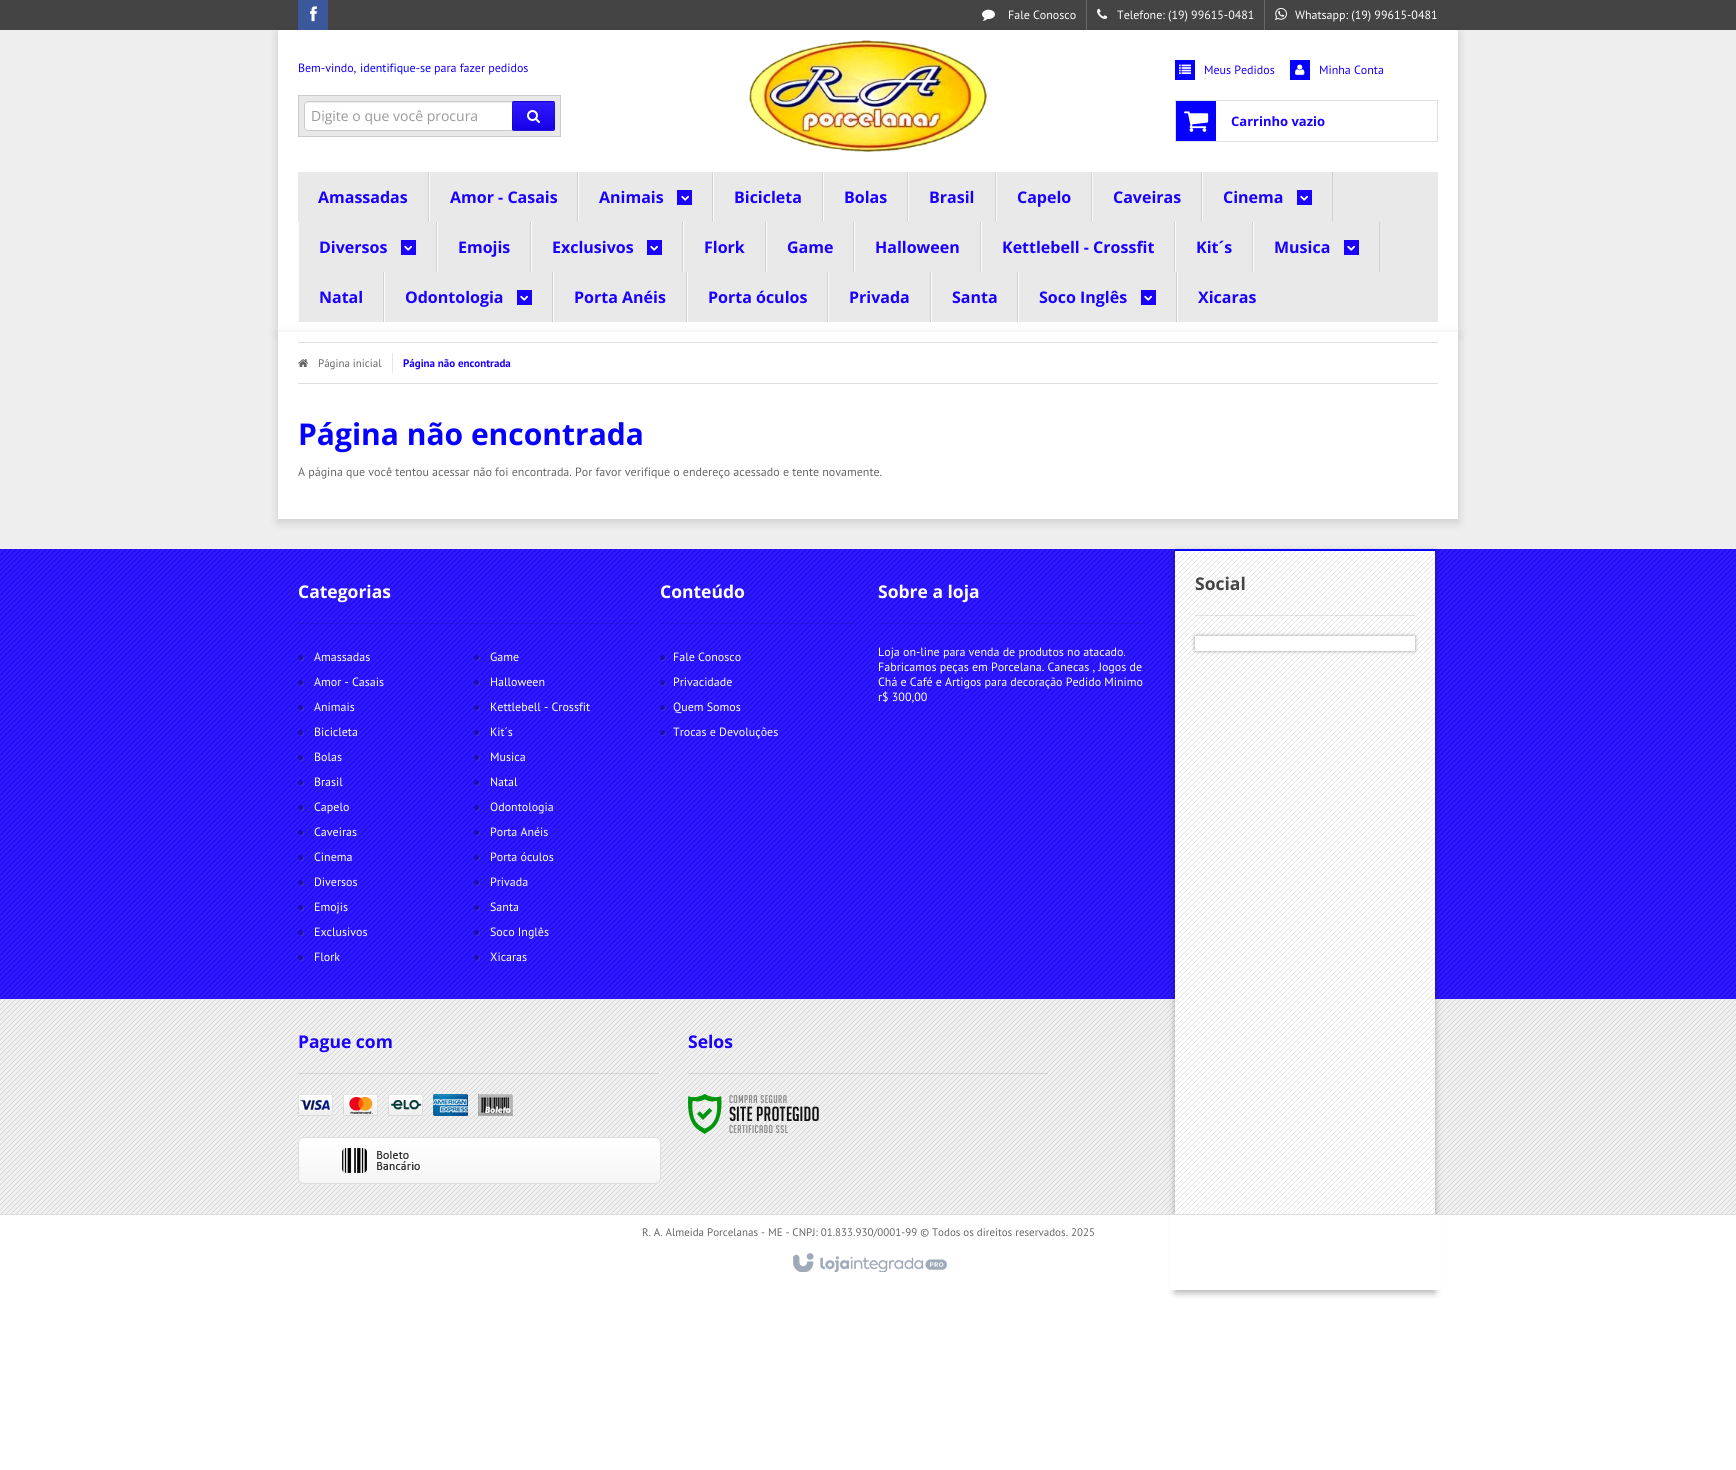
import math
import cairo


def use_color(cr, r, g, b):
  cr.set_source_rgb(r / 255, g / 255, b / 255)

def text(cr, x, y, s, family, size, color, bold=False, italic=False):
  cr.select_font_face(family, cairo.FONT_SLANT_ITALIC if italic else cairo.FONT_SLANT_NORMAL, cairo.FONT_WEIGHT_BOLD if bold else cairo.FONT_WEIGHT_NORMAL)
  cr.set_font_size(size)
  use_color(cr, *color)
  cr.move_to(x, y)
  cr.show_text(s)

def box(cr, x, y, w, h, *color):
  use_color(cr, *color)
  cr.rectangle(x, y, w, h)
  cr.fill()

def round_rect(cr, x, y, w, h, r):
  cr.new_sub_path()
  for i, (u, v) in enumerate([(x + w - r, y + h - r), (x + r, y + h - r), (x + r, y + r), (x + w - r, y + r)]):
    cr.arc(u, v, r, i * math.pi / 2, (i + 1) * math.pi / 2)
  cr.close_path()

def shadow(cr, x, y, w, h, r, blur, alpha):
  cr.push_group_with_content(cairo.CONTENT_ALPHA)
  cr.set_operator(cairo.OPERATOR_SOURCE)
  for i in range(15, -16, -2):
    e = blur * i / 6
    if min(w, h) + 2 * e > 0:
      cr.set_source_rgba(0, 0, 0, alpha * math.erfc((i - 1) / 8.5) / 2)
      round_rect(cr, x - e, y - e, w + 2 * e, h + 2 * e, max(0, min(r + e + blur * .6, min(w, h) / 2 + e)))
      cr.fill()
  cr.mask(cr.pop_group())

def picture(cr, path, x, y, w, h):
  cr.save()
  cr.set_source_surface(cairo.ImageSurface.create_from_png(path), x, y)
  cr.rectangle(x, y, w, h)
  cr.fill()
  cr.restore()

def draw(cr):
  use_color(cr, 255, 255, 255)
  cr.paint()
  box(cr, 0, 30, 1736, 1184, 238, 238, 238)
  box(cr, 0, 0, 1736, 30, 68, 68, 68)
  use_color(cr, 0, 0, 0)
  shadow(cr, 278, 33, 1180, 302, 0, 5, 0.15)
  box(cr, 298, 0, 30, 30, 58, 88, 155)
  picture(cr, "img_01.png", 310, 6, 7, 16)
  picture(cr, "img_02.png", 982, 9, 13, 12)
  box(cr, 1086, 0, 1, 30, 105, 105, 105)
  picture(cr, "img_03.png", 1097, 8, 11, 11)
  box(cr, 1264, 0, 1, 30, 105, 105, 105)
  picture(cr, "img_04.png", 1275, 8, 12, 12)
  box(cr, 278, 30, 1180, 302, 255, 255, 255)
  use_color(cr, 232, 232, 232)
  cr.rectangle(298.5, 95.5, 262, 41)
  cr.fill_preserve()
  use_color(cr, 202, 202, 202)
  cr.set_line_width(1)
  cr.stroke()
  use_color(cr, 255, 255, 255)
  round_rect(cr, 304, 101, 250, 30, 4)
  cr.fill()
  use_color(cr, 236, 236, 236)
  cr.new_path()
  cr.move_to(308, 103)
  cr.line_to(550, 103)
  cr.curve_to(552, 103, 553, 104, 553, 106)
  cr.curve_to(553, 104, 552, 102, 550, 102)
  cr.line_to(308, 102)
  cr.curve_to(306, 102, 305, 104, 305, 106)
  cr.curve_to(305, 104, 306, 103, 308, 103)
  cr.close_path()
  cr.fill()
  round_rect(cr, 304.5, 101.5, 249, 29, 3.5)
  use_color(cr, 204, 204, 204)
  cr.stroke()
  use_color(cr, 25, 0, 255)
  round_rect(cr, 512, 101, 43, 30, 2)
  cr.fill()
  gradient = cairo.LinearGradient(534, 74, 534, 102)
  gradient.add_color_stop_rgba(0, 1, 1, 1, 0.1)
  gradient.add_color_stop_rgba(1, 0, 0, 0, 0.1)
  cr.set_source(gradient)
  cr.rectangle(512, 101, 43, 1)
  cr.fill()
  gradient = cairo.LinearGradient(534, 102, 534, 130)
  gradient.add_color_stop_rgba(0, 1, 1, 1, 0.1)
  gradient.add_color_stop_rgba(1, 0, 0, 0, 0.1)
  cr.set_source(gradient)
  cr.rectangle(512, 102, 43, 28)
  cr.fill()
  gradient = cairo.LinearGradient(534, 130, 534, 158)
  gradient.add_color_stop_rgba(0, 1, 1, 1, 0.1)
  gradient.add_color_stop_rgba(1, 0, 0, 0, 0.1)
  cr.set_source(gradient)
  cr.rectangle(512, 130, 43, 1)
  cr.fill()
  round_rect(cr, 512.5, 101.5, 42, 29, 1.5)
  cr.set_source_rgba(0, 0, 0, 0.13)
  cr.stroke()
  picture(cr, "img_05.png", 527, 110, 13, 13)
  picture(cr, "img_06.png", 749, 40, 238, 112)
  box(cr, 1175, 60, 20, 20, 5, 0, 255)
  picture(cr, "img_07.png", 1179, 64, 12, 10)
  box(cr, 1290, 60, 20, 20, 5, 0, 255)
  picture(cr, "img_08.png", 1295, 64, 10, 11)
  cr.rectangle(1175.5, 100.5, 262, 41)
  use_color(cr, 224, 224, 224)
  cr.stroke()
  box(cr, 1176, 101, 40, 40, 5, 0, 255)
  picture(cr, "img_09.png", 1184, 111, 25, 21)
  box(cr, 298, 172, 1140, 150, 233, 233, 233)
  box(cr, 428, 172, 1, 50, 210, 210, 210)
  box(cr, 577, 172, 1, 50, 210, 210, 210)
  box(cr, 429, 172, 1, 50, 251, 251, 251)
  box(cr, 712, 172, 1, 50, 210, 210, 210)
  box(cr, 578, 172, 1, 50, 251, 251, 251)
  box(cr, 677, 190, 15, 15, 25, 0, 255)
  picture(cr, "img_10.png", 681, 195, 8, 6)
  box(cr, 822, 172, 1, 50, 210, 210, 210)
  box(cr, 713, 172, 1, 50, 251, 251, 251)
  box(cr, 907, 172, 1, 50, 210, 210, 210)
  box(cr, 823, 172, 1, 50, 251, 251, 251)
  box(cr, 995, 172, 1, 50, 210, 210, 210)
  box(cr, 908, 172, 1, 50, 251, 251, 251)
  box(cr, 1091, 172, 1, 50, 210, 210, 210)
  box(cr, 996, 172, 1, 50, 251, 251, 251)
  box(cr, 1201, 172, 1, 50, 210, 210, 210)
  box(cr, 1092, 172, 1, 50, 251, 251, 251)
  box(cr, 1332, 172, 1, 50, 210, 210, 210)
  box(cr, 1202, 172, 1, 50, 251, 251, 251)
  box(cr, 1297, 190, 15, 15, 25, 0, 255)
  picture(cr, "img_10.png", 1300, 195, 8, 6)
  box(cr, 436, 222, 1, 50, 210, 210, 210)
  box(cr, 401, 240, 15, 15, 25, 0, 255)
  picture(cr, "img_10.png", 404, 245, 8, 6)
  box(cr, 530, 222, 1, 50, 210, 210, 210)
  box(cr, 437, 222, 1, 50, 251, 251, 251)
  box(cr, 682, 222, 1, 50, 210, 210, 210)
  box(cr, 531, 222, 1, 50, 251, 251, 251)
  box(cr, 647, 240, 15, 15, 25, 0, 255)
  picture(cr, "img_10.png", 650, 245, 8, 6)
  box(cr, 765, 222, 1, 50, 210, 210, 210)
  box(cr, 683, 222, 1, 50, 251, 251, 251)
  box(cr, 853, 222, 1, 50, 210, 210, 210)
  box(cr, 766, 222, 1, 50, 251, 251, 251)
  box(cr, 980, 222, 1, 50, 210, 210, 210)
  box(cr, 854, 222, 1, 50, 251, 251, 251)
  box(cr, 1174, 222, 1, 50, 210, 210, 210)
  box(cr, 981, 222, 1, 50, 251, 251, 251)
  box(cr, 1252, 222, 1, 50, 210, 210, 210)
  box(cr, 1175, 222, 1, 50, 251, 251, 251)
  box(cr, 1379, 222, 1, 50, 210, 210, 210)
  box(cr, 1253, 222, 1, 50, 251, 251, 251)
  box(cr, 1344, 240, 15, 15, 25, 0, 255)
  picture(cr, "img_10.png", 1347, 245, 8, 6)
  use_color(cr, 0, 0, 0)
  shadow(cr, 278, 335, 1180, 187, 0, 5, 0.15)
  box(cr, 383, 272, 1, 50, 210, 210, 210)
  box(cr, 298, 222, 1, 100, 251, 251, 251)
  box(cr, 552, 272, 1, 50, 210, 210, 210)
  box(cr, 384, 272, 1, 50, 251, 251, 251)
  box(cr, 517, 290, 15, 15, 25, 0, 255)
  picture(cr, "img_10.png", 520, 295, 8, 6)
  box(cr, 686, 272, 1, 50, 210, 210, 210)
  box(cr, 553, 272, 1, 50, 251, 251, 251)
  box(cr, 827, 272, 1, 50, 210, 210, 210)
  box(cr, 687, 272, 1, 50, 251, 251, 251)
  box(cr, 930, 272, 1, 50, 210, 210, 210)
  box(cr, 828, 272, 1, 50, 251, 251, 251)
  box(cr, 1017, 272, 1, 50, 210, 210, 210)
  box(cr, 931, 272, 1, 50, 251, 251, 251)
  box(cr, 1176, 272, 1, 50, 210, 210, 210)
  box(cr, 1018, 272, 1, 50, 251, 251, 251)
  box(cr, 1141, 290, 15, 15, 25, 0, 255)
  picture(cr, "img_10.png", 1144, 295, 8, 6)
  box(cr, 1177, 272, 1, 50, 251, 251, 251)
  box(cr, 278, 332, 1180, 187, 255, 255, 255)
  box(cr, 298, 342, 1140, 1, 222, 222, 222)
  box(cr, 298, 383, 1140, 1, 222, 222, 222)
  picture(cr, "img_11.png", 298, 359, 10, 8)
  box(cr, 392, 353, 1, 20, 230, 230, 230)
  box(cr, 0, 549, 1736, 450, 25, 0, 255)
  picture(cr, "img_12.png", 0, 549, 1736, 450)
  cr.set_source_rgba(0, 0, 0, 0.1)
  cr.rectangle(298, 623, 341, 1)
  cr.fill()
  picture(cr, "img_13.png", 298, 655, 6, 6)
  picture(cr, "img_14.png", 474, 655, 6, 6)
  picture(cr, "img_13.png", 298, 680, 6, 6)
  picture(cr, "img_14.png", 474, 680, 6, 6)
  picture(cr, "img_13.png", 298, 705, 6, 6)
  picture(cr, "img_14.png", 474, 705, 6, 6)
  picture(cr, "img_13.png", 298, 730, 6, 6)
  picture(cr, "img_14.png", 474, 730, 6, 6)
  picture(cr, "img_13.png", 298, 755, 6, 6)
  picture(cr, "img_14.png", 474, 755, 6, 6)
  picture(cr, "img_15.png", 298, 780, 6, 6)
  picture(cr, "img_16.png", 474, 780, 6, 6)
  picture(cr, "img_15.png", 298, 805, 6, 6)
  picture(cr, "img_16.png", 474, 805, 6, 6)
  picture(cr, "img_15.png", 298, 830, 6, 6)
  picture(cr, "img_16.png", 474, 830, 6, 6)
  picture(cr, "img_15.png", 298, 855, 6, 6)
  picture(cr, "img_16.png", 474, 855, 6, 6)
  picture(cr, "img_15.png", 298, 880, 6, 6)
  picture(cr, "img_16.png", 474, 880, 6, 6)
  picture(cr, "img_15.png", 298, 905, 6, 6)
  picture(cr, "img_16.png", 474, 905, 6, 6)
  picture(cr, "img_15.png", 298, 930, 6, 6)
  picture(cr, "img_16.png", 474, 930, 6, 6)
  picture(cr, "img_15.png", 298, 955, 6, 6)
  picture(cr, "img_16.png", 474, 955, 6, 6)
  cr.rectangle(660, 623, 196, 1)
  cr.fill()
  picture(cr, "img_17.png", 660, 655, 6, 6)
  picture(cr, "img_17.png", 660, 680, 6, 6)
  picture(cr, "img_17.png", 660, 705, 6, 6)
  picture(cr, "img_17.png", 660, 730, 6, 6)
  cr.rectangle(878, 623, 268, 1)
  cr.fill()
  picture(cr, "img_19.png", 0, 999, 1736, 215)
  use_color(cr, 0, 0, 0)
  shadow(cr, 1175, 552, 260, 741, 0, 3.5, 0.3)
  box(cr, 1175, 551, 260, 663, 255, 255, 255)
  picture(cr, "img_18.png", 1175, 551, 260, 663)
  box(cr, 1175, 549, 260, 2, 5, 0, 255)
  cr.set_source_rgba(0, 0, 0, 0.1)
  cr.rectangle(1195, 615, 220, 1)
  cr.fill()
  use_color(cr, 0, 0, 0)
  shadow(cr, 1195, 636, 220, 15, 0, 2, 0.4)
  box(cr, 1195, 636, 220, 15, 255, 255, 255)
  cr.set_source_rgba(0, 0, 0, 0.1)
  cr.rectangle(298, 1073, 361, 1)
  cr.fill()
  picture(cr, "img_20.png", 298, 1094, 35, 22)
  picture(cr, "img_21.png", 343, 1094, 35, 22)
  picture(cr, "img_22.png", 388, 1094, 35, 22)
  picture(cr, "img_23.png", 433, 1094, 35, 22)
  picture(cr, "img_24.png", 478, 1094, 35, 22)
  cr.save()
  round_rect(cr, 298, 1137, 363, 47, 6)
  cr.clip()
  gradient = cairo.LinearGradient(480, 1138, 480, 1183)
  gradient.add_color_stop_rgba(0, 1, 1, 1, 1)
  gradient.add_color_stop_rgba(1, 0.961, 0.961, 0.961, 1)
  cr.set_source(gradient)
  cr.rectangle(298, 1138, 363, 45)
  cr.fill()
  cr.restore()
  round_rect(cr, 298.5, 1137.5, 362, 46, 5.5)
  use_color(cr, 221, 221, 221)
  cr.stroke()
  picture(cr, "img_25.png", 342, 1148, 78, 25)
  cr.set_source_rgba(0, 0, 0, 0.1)
  cr.rectangle(688, 1073, 360, 1)
  cr.fill()
  picture(cr, "img_26.png", 688, 1094, 131, 40)
  box(cr, 1169, 1215, 272, 75, 255, 255, 255)
  box(cr, 0, 1214, 1736, 1, 221, 221, 221)
  picture(cr, "img_27.png", 793, 1253, 154, 19)
  text(cr, 1008, 19, "Fale Conosco", "PT Sans", 12, (255, 255, 255))
  text(cr, 1117, 19, "Telefone: (19) 99615-0481", "PT Sans", 12, (255, 255, 255))
  text(cr, 1295, 19, "Whatsapp: (19) 99615-0481", "PT Sans", 12, (255, 255, 255))
  text(cr, 298, 72, "Bem-vindo,", "PT Sans", 12, (25, 0, 255))
  text(cr, 360, 72, "identifique-se", "PT Sans", 12, (5, 0, 255))
  text(cr, 434, 72, "para fazer pedidos", "PT Sans", 12, (25, 0, 255))
  text(cr, 311, 121, "Digite o que você procura", "Open Sans", 14, (153, 153, 153))
  text(cr, 1204, 74, "Meus Pedidos", "PT Sans", 12, (25, 0, 255))
  text(cr, 1319, 74, "Minha Conta", "PT Sans", 12, (25, 0, 255))
  text(cr, 1231, 126, "Carrinho vazio", "Open Sans", 13, (25, 0, 255), bold=True)
  text(cr, 318, 203, "Amassadas", "Open Sans", 16, (25, 0, 255), bold=True)
  text(cr, 450, 203, "Amor - Casais", "Open Sans", 16, (25, 0, 255), bold=True)
  text(cr, 599, 203, "Animais", "Open Sans", 16, (25, 0, 255), bold=True)
  text(cr, 734, 203, "Bicicleta", "Open Sans", 16, (25, 0, 255), bold=True)
  text(cr, 844, 203, "Bolas", "Open Sans", 16, (25, 0, 255), bold=True)
  text(cr, 929, 203, "Brasil", "Open Sans", 16, (25, 0, 255), bold=True)
  text(cr, 1017, 203, "Capelo", "Open Sans", 16, (25, 0, 255), bold=True)
  text(cr, 1113, 203, "Caveiras", "Open Sans", 16, (25, 0, 255), bold=True)
  text(cr, 1223, 203, "Cinema", "Open Sans", 16, (25, 0, 255), bold=True)
  text(cr, 319, 253, "Diversos", "Open Sans", 16, (25, 0, 255), bold=True)
  text(cr, 458, 253, "Emojis", "Open Sans", 16, (25, 0, 255), bold=True)
  text(cr, 552, 253, "Exclusivos", "Open Sans", 16, (25, 0, 255), bold=True)
  text(cr, 704, 253, "Flork", "Open Sans", 16, (25, 0, 255), bold=True)
  text(cr, 787, 253, "Game", "Open Sans", 16, (25, 0, 255), bold=True)
  text(cr, 875, 253, "Halloween", "Open Sans", 16, (25, 0, 255), bold=True)
  text(cr, 1002, 253, "Kettlebell - Crossfit", "Open Sans", 16, (25, 0, 255), bold=True)
  text(cr, 1196, 253, "Kit´s", "Open Sans", 16, (25, 0, 255), bold=True)
  text(cr, 1274, 253, "Musica", "Open Sans", 16, (25, 0, 255), bold=True)
  text(cr, 319, 303, "Natal", "Open Sans", 16, (25, 0, 255), bold=True)
  text(cr, 405, 303, "Odontologia", "Open Sans", 16, (25, 0, 255), bold=True)
  text(cr, 574, 303, "Porta Anéis", "Open Sans", 16, (25, 0, 255), bold=True)
  text(cr, 708, 303, "Porta óculos", "Open Sans", 16, (25, 0, 255), bold=True)
  text(cr, 849, 303, "Privada", "Open Sans", 16, (25, 0, 255), bold=True)
  text(cr, 952, 303, "Santa", "Open Sans", 16, (25, 0, 255), bold=True)
  text(cr, 1039, 303, "Soco Inglês", "Open Sans", 16, (25, 0, 255), bold=True)
  text(cr, 1198, 303, "Xicaras", "Open Sans", 16, (25, 0, 255), bold=True)
  text(cr, 318, 367, "Página inicial", "PT Sans", 11, (102, 102, 102))
  text(cr, 403, 367, "Página não encontrada", "PT Sans", 11, (25, 0, 255), bold=True)
  text(cr, 298, 445, "Página não encontrada", "Open Sans", 30, (5, 0, 255), bold=True)
  text(cr, 298, 476, "A página que você tentou acessar não foi encontrada. Por favor verifique o endereço acessado e tente novamente.", "PT Sans", 12, (102, 102, 102))
  text(cr, 298, 598, "Categorias", "Open Sans", 17.5, (255, 255, 255), bold=True)
  text(cr, 314, 661, "Amassadas", "PT Sans", 12, (255, 255, 255))
  text(cr, 490, 661, "Game", "PT Sans", 12, (255, 255, 255))
  text(cr, 314, 686, "Amor - Casais", "PT Sans", 12, (255, 255, 255))
  text(cr, 490, 686, "Halloween", "PT Sans", 12, (255, 255, 255))
  text(cr, 314, 711, "Animais", "PT Sans", 12, (255, 255, 255))
  text(cr, 490, 711, "Kettlebell - Crossfit", "PT Sans", 12, (255, 255, 255))
  text(cr, 314, 736, "Bicicleta", "PT Sans", 12, (255, 255, 255))
  text(cr, 490, 736, "Kit´s", "PT Sans", 12, (255, 255, 255))
  text(cr, 314, 761, "Bolas", "PT Sans", 12, (255, 255, 255))
  text(cr, 490, 761, "Musica", "PT Sans", 12, (255, 255, 255))
  text(cr, 314, 786, "Brasil", "PT Sans", 12, (255, 255, 255))
  text(cr, 490, 786, "Natal", "PT Sans", 12, (255, 255, 255))
  text(cr, 314, 811, "Capelo", "PT Sans", 12, (255, 255, 255))
  text(cr, 490, 811, "Odontologia", "PT Sans", 12, (255, 255, 255))
  text(cr, 314, 836, "Caveiras", "PT Sans", 12, (255, 255, 255))
  text(cr, 490, 836, "Porta Anéis", "PT Sans", 12, (255, 255, 255))
  text(cr, 314, 861, "Cinema", "PT Sans", 12, (255, 255, 255))
  text(cr, 490, 861, "Porta óculos", "PT Sans", 12, (255, 255, 255))
  text(cr, 314, 886, "Diversos", "PT Sans", 12, (255, 255, 255))
  text(cr, 490, 886, "Privada", "PT Sans", 12, (255, 255, 255))
  text(cr, 314, 911, "Emojis", "PT Sans", 12, (255, 255, 255))
  text(cr, 490, 911, "Santa", "PT Sans", 12, (255, 255, 255))
  text(cr, 314, 936, "Exclusivos", "PT Sans", 12, (255, 255, 255))
  text(cr, 490, 936, "Soco Inglês", "PT Sans", 12, (255, 255, 255))
  text(cr, 314, 961, "Flork", "PT Sans", 12, (255, 255, 255))
  text(cr, 490, 961, "Xicaras", "PT Sans", 12, (255, 255, 255))
  text(cr, 660, 598, "Conteúdo", "Open Sans", 17.5, (255, 255, 255), bold=True)
  text(cr, 673, 661, "Fale Conosco", "PT Sans", 12, (255, 255, 255))
  text(cr, 673, 686, "Privacidade", "PT Sans", 12, (255, 255, 255))
  text(cr, 673, 711, "Quem Somos", "PT Sans", 12, (255, 255, 255))
  text(cr, 673, 736, "Trocas e Devoluções", "PT Sans", 12, (255, 255, 255))
  text(cr, 878, 598, "Sobre a loja", "Open Sans", 17.5, (255, 255, 255), bold=True)
  text(cr, 878, 656, "Loja on-line para venda de produtos no atacado.", "PT Sans", 12, (255, 255, 255))
  text(cr, 878, 671, "Fabricamos peças em Porcelana. Canecas , Jogos de", "PT Sans", 12, (255, 255, 255))
  text(cr, 878, 686, "Chá e Café e Artigos para decoração Pedido Minimo", "PT Sans", 12, (255, 255, 255))
  text(cr, 878, 701, "r$ 300,00", "PT Sans", 12, (255, 255, 255))
  text(cr, 1195, 590, "Social", "Open Sans", 17.5, (68, 68, 68), bold=True)
  text(cr, 298, 1048, "Pague com", "Open Sans", 17.5, (25, 0, 255), bold=True)
  text(cr, 688, 1048, "Selos", "Open Sans", 17.5, (25, 0, 255), bold=True)
  text(cr, 642, 1236, "R. A. Almeida Porcelanas - ME - CNPJ: 01.833.930/0001-99 © Todos os direitos reservados. 2025", "PT Sans", 11, (102, 102, 102))


surface = cairo.ImageSurface(cairo.FORMAT_RGB24, 1736, 1470)
cr = cairo.Context(surface)
options = cairo.FontOptions()
options.set_hint_metrics(cairo.HINT_METRICS_OFF)
options.set_hint_style(cairo.HINT_STYLE_NONE)
cr.set_font_options(options)
cr.set_miter_limit(4)
draw(cr)
surface.write_to_png("out.png")
